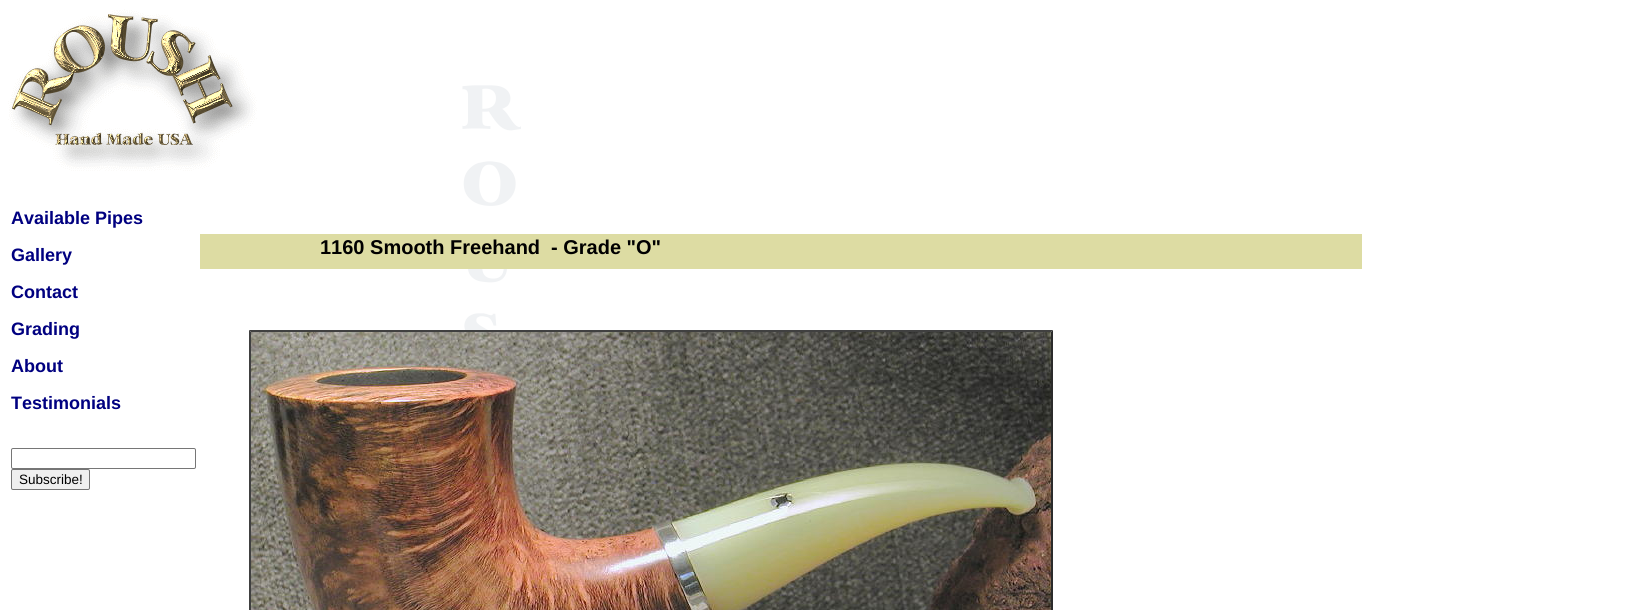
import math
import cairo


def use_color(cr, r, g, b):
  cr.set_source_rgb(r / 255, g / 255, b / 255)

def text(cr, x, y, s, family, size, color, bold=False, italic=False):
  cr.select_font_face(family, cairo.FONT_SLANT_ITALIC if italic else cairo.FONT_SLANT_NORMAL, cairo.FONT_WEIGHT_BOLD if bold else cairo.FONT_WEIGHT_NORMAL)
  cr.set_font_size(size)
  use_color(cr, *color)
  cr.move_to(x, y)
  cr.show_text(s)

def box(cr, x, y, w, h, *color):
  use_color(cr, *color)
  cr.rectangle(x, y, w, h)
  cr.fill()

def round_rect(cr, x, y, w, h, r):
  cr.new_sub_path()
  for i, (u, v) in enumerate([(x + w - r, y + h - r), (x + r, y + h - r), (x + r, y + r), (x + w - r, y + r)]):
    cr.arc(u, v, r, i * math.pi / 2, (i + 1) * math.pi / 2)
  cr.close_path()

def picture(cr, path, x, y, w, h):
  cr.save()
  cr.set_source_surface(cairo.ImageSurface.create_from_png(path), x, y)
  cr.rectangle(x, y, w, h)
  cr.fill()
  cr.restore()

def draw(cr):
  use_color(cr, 255, 255, 255)
  cr.paint()
  picture(cr, "img_01.png", 462, 85, 59, 245)
  picture(cr, "img_02.png", 8, 9, 249, 162)
  round_rect(cr, 11.5, 448.5, 184, 20, 1.5)
  use_color(cr, 118, 118, 118)
  cr.set_line_width(1)
  cr.stroke()
  use_color(cr, 239, 239, 239)
  round_rect(cr, 11.5, 469.5, 78, 20, 1.5)
  cr.fill_preserve()
  use_color(cr, 118, 118, 118)
  cr.stroke()
  box(cr, 200, 234, 1162, 35, 221, 220, 163)
  use_color(cr, 64, 64, 64)
  cr.new_path()
  cr.move_to(249, 330)
  cr.line_to(1053, 330)
  cr.line_to(1051, 332)
  cr.line_to(251, 332)
  cr.close_path()
  cr.fill()
  cr.new_path()
  cr.move_to(249, 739)
  cr.line_to(249, 330)
  cr.line_to(251, 332)
  cr.line_to(251, 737)
  cr.close_path()
  cr.fill()
  picture(cr, "img_03.png", 251, 332, 800, 278)
  use_color(cr, 43, 43, 43)
  cr.new_path()
  cr.move_to(1053, 330)
  cr.line_to(1053, 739)
  cr.line_to(1051, 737)
  cr.line_to(1051, 332)
  cr.close_path()
  cr.fill()
  text(cr, 11, 224, "Available Pipes", "Liberation Sans", 18, (0, 0, 128), bold=True)
  text(cr, 11, 261, "Gallery", "Liberation Sans", 18, (0, 0, 128), bold=True)
  text(cr, 11, 298, "Contact", "Liberation Sans", 18, (0, 0, 128), bold=True)
  text(cr, 11, 335, "Grading", "Liberation Sans", 18, (0, 0, 128), bold=True)
  text(cr, 11, 372, "About", "Liberation Sans", 18, (0, 0, 128), bold=True)
  text(cr, 11, 409, "Testimonials", "Liberation Sans", 18, (0, 0, 128), bold=True)
  text(cr, 19, 484, "Subscribe!", "Liberation Sans", 13.5, (0, 0, 0))
  text(cr, 320, 254, "1160 Smooth Freehand", "Liberation Sans", 20, (0, 0, 0), bold=True)
  text(cr, 551, 254, "- Grade \"O\"", "Liberation Sans", 20, (0, 0, 0), bold=True)


surface = cairo.ImageSurface(cairo.FORMAT_RGB24, 1638, 610)
cr = cairo.Context(surface)
options = cairo.FontOptions()
options.set_hint_metrics(cairo.HINT_METRICS_OFF)
options.set_hint_style(cairo.HINT_STYLE_NONE)
cr.set_font_options(options)
cr.set_miter_limit(4)
draw(cr)
surface.write_to_png("out.png")
